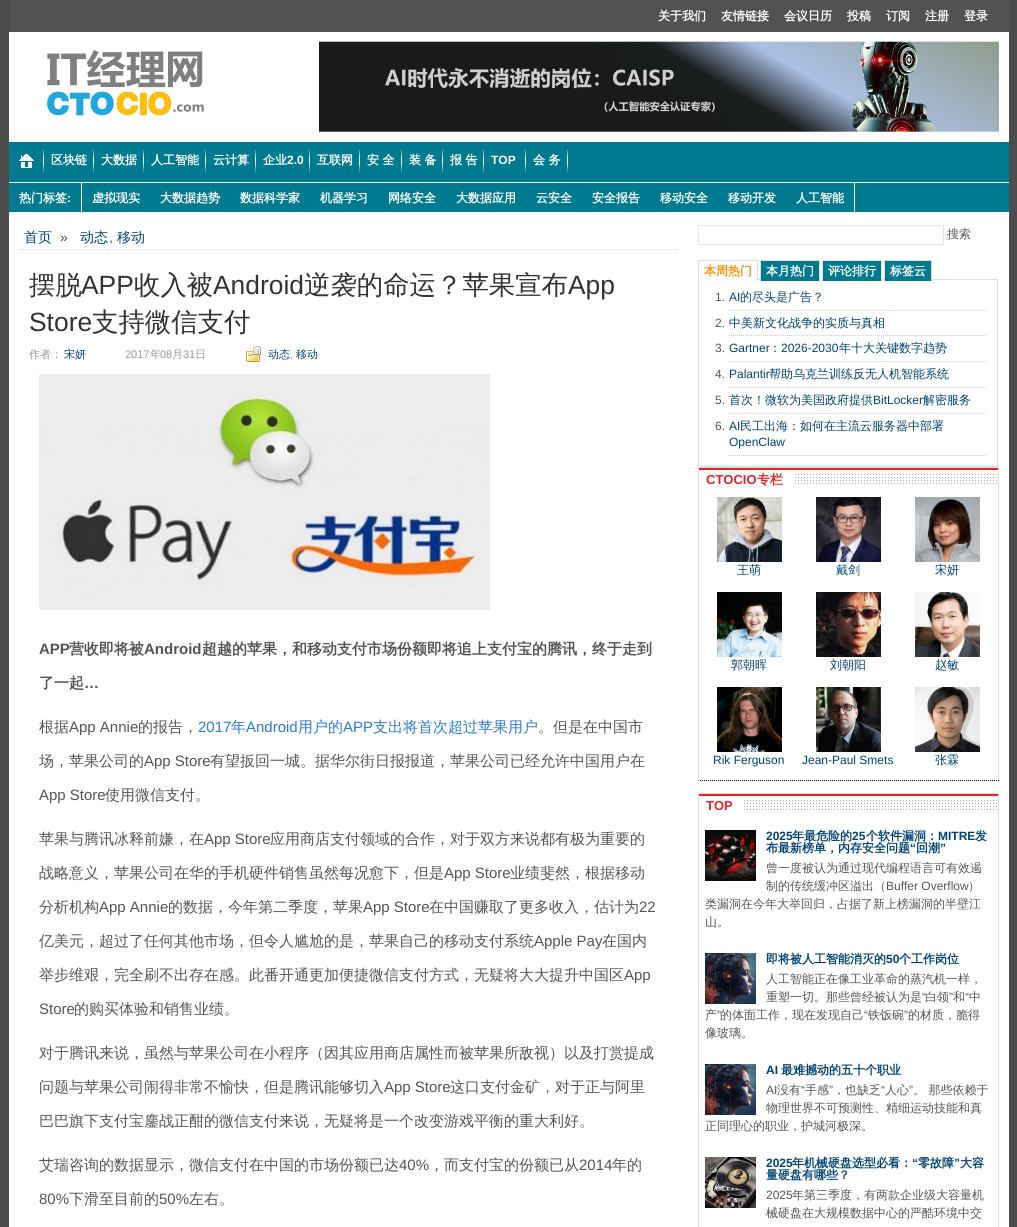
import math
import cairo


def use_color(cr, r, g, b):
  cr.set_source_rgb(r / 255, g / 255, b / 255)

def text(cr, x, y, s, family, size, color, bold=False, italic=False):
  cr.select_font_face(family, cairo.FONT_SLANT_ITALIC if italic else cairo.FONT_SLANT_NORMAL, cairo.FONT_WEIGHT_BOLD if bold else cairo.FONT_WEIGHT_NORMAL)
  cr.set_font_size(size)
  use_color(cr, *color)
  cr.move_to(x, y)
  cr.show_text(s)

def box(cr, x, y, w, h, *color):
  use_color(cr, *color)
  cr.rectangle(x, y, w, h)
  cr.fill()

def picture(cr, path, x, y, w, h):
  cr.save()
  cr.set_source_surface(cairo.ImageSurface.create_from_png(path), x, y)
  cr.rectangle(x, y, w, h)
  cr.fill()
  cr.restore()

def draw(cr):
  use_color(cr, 76, 76, 76)
  cr.paint()
  box(cr, 9, 32, 1000, 1195, 255, 255, 255)
  box(cr, 9, 0, 1000, 32, 81, 82, 82)
  picture(cr, "img_01.png", 47, 50, 157, 66)
  picture(cr, "img_02.png", 319, 41, 680, 91)
  box(cr, 9, 142, 1000, 40, 0, 122, 143)
  picture(cr, "img_03.png", 43, 149, 1, 25)
  picture(cr, "img_04.png", 19, 154, 15, 14)
  picture(cr, "img_03.png", 93, 149, 1, 25)
  picture(cr, "img_03.png", 143, 149, 1, 25)
  picture(cr, "img_03.png", 205, 149, 1, 25)
  picture(cr, "img_03.png", 255, 149, 1, 25)
  picture(cr, "img_03.png", 309, 149, 1, 25)
  picture(cr, "img_03.png", 359, 149, 1, 25)
  picture(cr, "img_03.png", 401, 149, 1, 25)
  picture(cr, "img_03.png", 442, 149, 1, 25)
  picture(cr, "img_03.png", 483, 149, 1, 25)
  picture(cr, "img_03.png", 525, 149, 1, 25)
  picture(cr, "img_03.png", 567, 149, 1, 25)
  box(cr, 9, 183, 1000, 29, 0, 122, 143)
  box(cr, 81, 183, 1, 30, 255, 255, 255)
  box(cr, 854, 183, 1, 30, 255, 255, 255)
  cr.new_path()
  cr.move_to(19, 249.5)
  cr.line_to(678, 249.5)
  use_color(cr, 221, 221, 221)
  cr.set_line_width(1)
  cr.set_dash([1, 1])
  cr.stroke()
  picture(cr, "img_05.png", 246, 346, 15, 16)
  picture(cr, "img_06.png", 39, 374, 451, 236)
  cr.rectangle(698.5, 225.5, 245, 19)
  use_color(cr, 229, 229, 229)
  cr.set_dash([])
  cr.stroke()
  box(cr, 758, 279, 240, 1, 221, 221, 221)
  box(cr, 698, 260, 60, 1, 221, 221, 221)
  box(cr, 757, 260, 1, 21, 221, 221, 221)
  box(cr, 997, 280, 1, 187, 221, 221, 221)
  box(cr, 698, 466, 300, 1, 221, 221, 221)
  box(cr, 698, 280, 1, 187, 221, 221, 221)
  box(cr, 698, 260, 1, 21, 221, 221, 221)
  box(cr, 761, 261, 58, 20, 0, 122, 143)
  box(cr, 760, 260, 60, 1, 221, 221, 221)
  box(cr, 819, 260, 1, 21, 221, 221, 221)
  box(cr, 760, 260, 1, 21, 221, 221, 221)
  box(cr, 823, 261, 58, 20, 0, 122, 143)
  box(cr, 822, 260, 60, 1, 221, 221, 221)
  box(cr, 881, 260, 1, 21, 221, 221, 221)
  box(cr, 822, 260, 1, 21, 221, 221, 221)
  box(cr, 885, 261, 46, 20, 0, 122, 143)
  box(cr, 884, 260, 48, 1, 221, 221, 221)
  box(cr, 931, 260, 1, 21, 221, 221, 221)
  box(cr, 884, 260, 1, 21, 221, 221, 221)
  cr.new_path()
  cr.move_to(729, 310.5)
  cr.line_to(987, 310.5)
  use_color(cr, 204, 204, 204)
  cr.set_dash([1, 1])
  cr.stroke()
  cr.new_path()
  cr.move_to(729, 335.5)
  cr.line_to(987, 335.5)
  cr.stroke()
  cr.new_path()
  cr.move_to(729, 361.5)
  cr.line_to(987, 361.5)
  cr.stroke()
  cr.new_path()
  cr.move_to(729, 387.5)
  cr.line_to(987, 387.5)
  cr.stroke()
  cr.new_path()
  cr.move_to(729, 413.5)
  cr.line_to(987, 413.5)
  cr.stroke()
  cr.new_path()
  cr.move_to(729, 455.5)
  cr.line_to(987, 455.5)
  cr.stroke()
  box(cr, 698, 467, 301, 1, 221, 221, 221)
  box(cr, 998, 467, 1, 314, 221, 221, 221)
  cr.new_path()
  cr.move_to(698, 780.5)
  cr.line_to(999, 780.5)
  use_color(cr, 0, 0, 0)
  cr.stroke()
  box(cr, 698, 467, 1, 314, 221, 221, 221)
  picture(cr, "img_07.png", 794, 474, 203, 10)
  box(cr, 699, 468, 299, 2, 227, 37, 41)
  picture(cr, "img_08.png", 717, 497, 65, 65)
  picture(cr, "img_09.png", 816, 497, 65, 65)
  picture(cr, "img_10.png", 915, 497, 65, 65)
  picture(cr, "img_11.png", 717, 592, 65, 65)
  picture(cr, "img_12.png", 816, 592, 65, 65)
  picture(cr, "img_13.png", 915, 592, 65, 65)
  picture(cr, "img_14.png", 717, 687, 65, 65)
  picture(cr, "img_15.png", 816, 687, 65, 65)
  picture(cr, "img_16.png", 915, 687, 65, 65)
  box(cr, 698, 793, 301, 1, 221, 221, 221)
  box(cr, 998, 793, 1, 434, 221, 221, 221)
  box(cr, 698, 793, 1, 434, 221, 221, 221)
  picture(cr, "img_17.png", 743, 800, 254, 10)
  box(cr, 699, 794, 299, 2, 227, 37, 41)
  picture(cr, "img_18.png", 705, 830, 51, 51)
  picture(cr, "img_19.png", 705, 953, 51, 51)
  picture(cr, "img_20.png", 705, 1064, 51, 51)
  picture(cr, "img_21.png", 705, 1157, 51, 51)
  text(cr, 658, 20, "关于我们", "WenQuanYi Zen Hei", 12, (255, 255, 255), bold=True)
  text(cr, 721, 20, "友情链接", "WenQuanYi Zen Hei", 12, (255, 255, 255), bold=True)
  text(cr, 784, 20, "会议日历", "WenQuanYi Zen Hei", 12, (255, 255, 255), bold=True)
  text(cr, 847, 20, "投稿", "WenQuanYi Zen Hei", 12, (255, 255, 255), bold=True)
  text(cr, 886, 20, "订阅", "WenQuanYi Zen Hei", 12, (255, 255, 255), bold=True)
  text(cr, 925, 20, "注册", "WenQuanYi Zen Hei", 12, (255, 255, 255), bold=True)
  text(cr, 964, 20, "登录", "WenQuanYi Zen Hei", 12, (255, 255, 255), bold=True)
  text(cr, 51, 164, "区块链", "WenQuanYi Zen Hei", 12, (255, 255, 255), bold=True)
  text(cr, 101, 164, "大数据", "WenQuanYi Zen Hei", 12, (255, 255, 255), bold=True)
  text(cr, 151, 164, "人工智能", "WenQuanYi Zen Hei", 12, (255, 255, 255), bold=True)
  text(cr, 213, 164, "云计算", "WenQuanYi Zen Hei", 12, (255, 255, 255), bold=True)
  text(cr, 263, 164, "企业", "WenQuanYi Zen Hei", 12, (255, 255, 255), bold=True)
  text(cr, 287, 164, "2.0", "Liberation Sans", 12, (255, 255, 255), bold=True)
  text(cr, 317, 164, "互联网", "WenQuanYi Zen Hei", 12, (255, 255, 255), bold=True)
  text(cr, 367, 164, "安 全", "WenQuanYi Zen Hei", 12, (255, 255, 255), bold=True)
  text(cr, 409, 164, "装 备", "WenQuanYi Zen Hei", 12, (255, 255, 255), bold=True)
  text(cr, 450, 164, "报 告", "WenQuanYi Zen Hei", 12, (255, 255, 255), bold=True)
  text(cr, 491, 164, "TOP", "Liberation Sans", 12, (255, 255, 255), bold=True)
  text(cr, 533, 164, "会 务", "WenQuanYi Zen Hei", 12, (255, 255, 255), bold=True)
  text(cr, 19, 202, "热门标签", "WenQuanYi Zen Hei", 12, (255, 255, 255), bold=True)
  text(cr, 67, 202, ":", "Liberation Sans", 12, (255, 255, 255), bold=True)
  text(cr, 92, 202, "虚拟现实", "WenQuanYi Zen Hei", 12, (255, 255, 255), bold=True)
  text(cr, 160, 202, "大数据趋势", "WenQuanYi Zen Hei", 12, (255, 255, 255), bold=True)
  text(cr, 240, 202, "数据科学家", "WenQuanYi Zen Hei", 12, (255, 255, 255), bold=True)
  text(cr, 320, 202, "机器学习", "WenQuanYi Zen Hei", 12, (255, 255, 255), bold=True)
  text(cr, 388, 202, "网络安全", "WenQuanYi Zen Hei", 12, (255, 255, 255), bold=True)
  text(cr, 456, 202, "大数据应用", "WenQuanYi Zen Hei", 12, (255, 255, 255), bold=True)
  text(cr, 536, 202, "云安全", "WenQuanYi Zen Hei", 12, (255, 255, 255), bold=True)
  text(cr, 592, 202, "安全报告", "WenQuanYi Zen Hei", 12, (255, 255, 255), bold=True)
  text(cr, 660, 202, "移动安全", "WenQuanYi Zen Hei", 12, (255, 255, 255), bold=True)
  text(cr, 728, 202, "移动开发", "WenQuanYi Zen Hei", 12, (255, 255, 255), bold=True)
  text(cr, 796, 202, "人工智能", "WenQuanYi Zen Hei", 12, (255, 255, 255), bold=True)
  text(cr, 24, 242, "首页", "WenQuanYi Zen Hei Medium", 14, (0, 66, 118))
  text(cr, 60, 242, "»", "Liberation Sans", 14, (85, 85, 85))
  text(cr, 80, 242, "动态", "WenQuanYi Zen Hei Medium", 14, (0, 66, 118))
  text(cr, 117, 242, "移动", "WenQuanYi Zen Hei Medium", 14, (0, 66, 118))
  text(cr, 109, 242, ",", "Liberation Sans", 14, (85, 85, 85))
  text(cr, 29, 294, "摆脱", "WenQuanYi Zen Hei Medium", 26.4, (51, 51, 51))
  text(cr, 81, 294, "APP", "Liberation Sans", 26.4, (51, 51, 51))
  text(cr, 134, 294, "收入被", "WenQuanYi Zen Hei Medium", 26.4, (51, 51, 51))
  text(cr, 213, 294, "Android", "Liberation Sans", 26.4, (51, 51, 51))
  text(cr, 304, 294, "逆袭的命运？苹果宣布", "WenQuanYi Zen Hei Medium", 26.4, (51, 51, 51))
  text(cr, 568, 294, "App", "Liberation Sans", 26.4, (51, 51, 51))
  text(cr, 29, 331, "Store", "Liberation Sans", 26.4, (51, 51, 51))
  text(cr, 92, 331, "支持微信支付", "WenQuanYi Zen Hei Medium", 26.4, (51, 51, 51))
  text(cr, 29, 358, "作者：", "WenQuanYi Zen Hei Medium", 11, (153, 153, 153))
  text(cr, 64, 358, "宋妍", "WenQuanYi Zen Hei Medium", 11, (0, 66, 118))
  text(cr, 125, 358, "2017", "Liberation Sans", 11, (153, 153, 153))
  text(cr, 150, 358, "年", "WenQuanYi Zen Hei Medium", 11, (153, 153, 153))
  text(cr, 160, 358, "08", "Liberation Sans", 11, (153, 153, 153))
  text(cr, 172, 358, "月", "WenQuanYi Zen Hei Medium", 11, (153, 153, 153))
  text(cr, 183, 358, "31", "Liberation Sans", 11, (153, 153, 153))
  text(cr, 195, 358, "日", "WenQuanYi Zen Hei Medium", 11, (153, 153, 153))
  text(cr, 268, 358, "动态", "WenQuanYi Zen Hei Medium", 11, (0, 66, 118))
  text(cr, 290, 358, ",", "Liberation Sans", 11, (153, 153, 153))
  text(cr, 296, 358, "移动", "WenQuanYi Zen Hei Medium", 11, (0, 66, 118))
  text(cr, 39, 654, "APP", "Liberation Sans", 15, (85, 85, 85), bold=True)
  text(cr, 69, 654, "营收即将被", "WenQuanYi Zen Hei", 15, (85, 85, 85), bold=True)
  text(cr, 144, 654, "Android", "Liberation Sans", 15, (85, 85, 85), bold=True)
  text(cr, 202, 654, "超越的苹果，和移动支付市场份额即将追上支付宝的腾讯，终于走到", "WenQuanYi Zen Hei", 15, (85, 85, 85), bold=True)
  text(cr, 39, 688, "了一起", "WenQuanYi Zen Hei", 15, (85, 85, 85), bold=True)
  text(cr, 84, 688, "…", "Liberation Sans", 15, (85, 85, 85), bold=True)
  text(cr, 39, 732, "根据", "WenQuanYi Zen Hei Medium", 15, (85, 85, 85))
  text(cr, 69, 732, "App Annie", "Liberation Sans", 15, (85, 85, 85))
  text(cr, 138, 732, "的报告，", "WenQuanYi Zen Hei Medium", 15, (85, 85, 85))
  text(cr, 198, 732, "2017", "Liberation Sans", 15, (42, 120, 228))
  text(cr, 231, 732, "年", "WenQuanYi Zen Hei Medium", 15, (42, 120, 228))
  text(cr, 246, 732, "Android", "Liberation Sans", 15, (42, 120, 228))
  text(cr, 298, 732, "用户的", "WenQuanYi Zen Hei Medium", 15, (42, 120, 228))
  text(cr, 343, 732, "APP", "Liberation Sans", 15, (42, 120, 228))
  text(cr, 373, 732, "支出将首次超过苹果用户", "WenQuanYi Zen Hei Medium", 15, (42, 120, 228))
  text(cr, 538, 732, "。但是在中国市", "WenQuanYi Zen Hei Medium", 15, (85, 85, 85))
  text(cr, 39, 766, "场，苹果公司的", "WenQuanYi Zen Hei Medium", 15, (85, 85, 85))
  text(cr, 144, 766, "App Store", "Liberation Sans", 15, (85, 85, 85))
  text(cr, 210, 766, "有望扳回一城。据华尔街日报报道，苹果公司已经允许中国用户在", "WenQuanYi Zen Hei Medium", 15, (85, 85, 85))
  text(cr, 39, 800, "App Store", "Liberation Sans", 15, (85, 85, 85))
  text(cr, 105, 800, "使用微信支付。", "WenQuanYi Zen Hei Medium", 15, (85, 85, 85))
  text(cr, 39, 844, "苹果与腾讯冰释前嫌，在", "WenQuanYi Zen Hei Medium", 15, (85, 85, 85))
  text(cr, 204, 844, "App Store", "Liberation Sans", 15, (85, 85, 85))
  text(cr, 270, 844, "应用商店支付领域的合作，对于双方来说都有极为重要的", "WenQuanYi Zen Hei Medium", 15, (85, 85, 85))
  text(cr, 39, 878, "战略意义，苹果公司在华的手机硬件销售虽然每况愈下，但是", "WenQuanYi Zen Hei Medium", 15, (85, 85, 85))
  text(cr, 444, 878, "App Store", "Liberation Sans", 15, (85, 85, 85))
  text(cr, 510, 878, "业绩斐然，根据移动", "WenQuanYi Zen Hei Medium", 15, (85, 85, 85))
  text(cr, 39, 912, "分析机构", "WenQuanYi Zen Hei Medium", 15, (85, 85, 85))
  text(cr, 99, 912, "App Annie", "Liberation Sans", 15, (85, 85, 85))
  text(cr, 168, 912, "的数据，今年第二季度，苹果", "WenQuanYi Zen Hei Medium", 15, (85, 85, 85))
  text(cr, 363, 912, "App Store", "Liberation Sans", 15, (85, 85, 85))
  text(cr, 429, 912, "在中国赚取了更多收入，估计为", "WenQuanYi Zen Hei Medium", 15, (85, 85, 85))
  text(cr, 639, 912, "22", "Liberation Sans", 15, (85, 85, 85))
  text(cr, 39, 946, "亿美元，超过了任何其他市场，但令人尴尬的是，苹果自己的移动支付系统", "WenQuanYi Zen Hei Medium", 15, (85, 85, 85))
  text(cr, 534, 946, "Apple Pay", "Liberation Sans", 15, (85, 85, 85))
  text(cr, 602, 946, "在国内", "WenQuanYi Zen Hei Medium", 15, (85, 85, 85))
  text(cr, 39, 980, "举步维艰，完全刷不出存在感。此番开通更加便捷微信支付方式，无疑将大大提升中国区", "WenQuanYi Zen Hei Medium", 15, (85, 85, 85))
  text(cr, 624, 980, "App", "Liberation Sans", 15, (85, 85, 85))
  text(cr, 39, 1014, "Store", "Liberation Sans", 15, (85, 85, 85))
  text(cr, 74, 1014, "的购买体验和销售业绩。", "WenQuanYi Zen Hei Medium", 15, (85, 85, 85))
  text(cr, 39, 1058, "对于腾讯来说，虽然与苹果公司在小程序（因其应用商店属性而被苹果所敌视）以及打赏提成", "WenQuanYi Zen Hei Medium", 15, (85, 85, 85))
  text(cr, 39, 1092, "问题与苹果公司闹得非常不愉快，但是腾讯能够切入", "WenQuanYi Zen Hei Medium", 15, (85, 85, 85))
  text(cr, 384, 1092, "App Store", "Liberation Sans", 15, (85, 85, 85))
  text(cr, 450, 1092, "这口支付金矿，对于正与阿里", "WenQuanYi Zen Hei Medium", 15, (85, 85, 85))
  text(cr, 39, 1126, "巴巴旗下支付宝鏖战正酣的微信支付来说，无疑将是一个改变游戏平衡的重大利好。", "WenQuanYi Zen Hei Medium", 15, (85, 85, 85))
  text(cr, 39, 1170, "艾瑞咨询的数据显示，微信支付在中国的市场份额已达", "WenQuanYi Zen Hei Medium", 15, (85, 85, 85))
  text(cr, 399, 1170, "40%", "Liberation Sans", 15, (85, 85, 85))
  text(cr, 429, 1170, "，而支付宝的份额已从", "WenQuanYi Zen Hei Medium", 15, (85, 85, 85))
  text(cr, 579, 1170, "2014", "Liberation Sans", 15, (85, 85, 85))
  text(cr, 612, 1170, "年的", "WenQuanYi Zen Hei Medium", 15, (85, 85, 85))
  text(cr, 39, 1204, "80%", "Liberation Sans", 15, (85, 85, 85))
  text(cr, 69, 1204, "下滑至目前的", "WenQuanYi Zen Hei Medium", 15, (85, 85, 85))
  text(cr, 159, 1204, "50%", "Liberation Sans", 15, (85, 85, 85))
  text(cr, 189, 1204, "左右。", "WenQuanYi Zen Hei Medium", 15, (85, 85, 85))
  text(cr, 947, 238, "搜索", "WenQuanYi Zen Hei Medium", 12, (85, 85, 85))
  text(cr, 704, 275, "本周热门", "WenQuanYi Zen Hei", 12, (255, 144, 0), bold=True)
  text(cr, 766, 275, "本月热门", "WenQuanYi Zen Hei", 12, (255, 255, 255), bold=True)
  text(cr, 828, 275, "评论排行", "WenQuanYi Zen Hei", 12, (255, 255, 255), bold=True)
  text(cr, 890, 275, "标签云", "WenQuanYi Zen Hei", 12, (255, 255, 255), bold=True)
  text(cr, 715, 301, "1.", "Liberation Sans", 12, (85, 85, 85))
  text(cr, 729, 301, "AI", "Liberation Sans", 12, (0, 66, 118))
  text(cr, 740, 301, "的尽头是广告？", "WenQuanYi Zen Hei Medium", 12, (0, 66, 118))
  text(cr, 715, 327, "2.", "Liberation Sans", 12, (85, 85, 85))
  text(cr, 729, 327, "中美新文化战争的实质与真相", "WenQuanYi Zen Hei Medium", 12, (0, 66, 118))
  text(cr, 715, 352, "3.", "Liberation Sans", 12, (85, 85, 85))
  text(cr, 729, 352, "Gartner", "Liberation Sans", 12, (0, 66, 118))
  text(cr, 769, 352, "：", "WenQuanYi Zen Hei Medium", 12, (0, 66, 118))
  text(cr, 781, 352, "2026-2030", "Liberation Sans", 12, (0, 66, 118))
  text(cr, 839, 352, "年十大关键数字趋势", "WenQuanYi Zen Hei Medium", 12, (0, 66, 118))
  text(cr, 715, 378, "4.", "Liberation Sans", 12, (85, 85, 85))
  text(cr, 729, 378, "Palantir", "Liberation Sans", 12, (0, 66, 118))
  text(cr, 769, 378, "帮助乌克兰训练反无人机智能系统", "WenQuanYi Zen Hei Medium", 12, (0, 66, 118))
  text(cr, 715, 404, "5.", "Liberation Sans", 12, (85, 85, 85))
  text(cr, 729, 404, "首次！微软为美国政府提供", "WenQuanYi Zen Hei Medium", 12, (0, 66, 118))
  text(cr, 873, 404, "BitLocker", "Liberation Sans", 12, (0, 66, 118))
  text(cr, 923, 404, "解密服务", "WenQuanYi Zen Hei Medium", 12, (0, 66, 118))
  text(cr, 715, 430, "6.", "Liberation Sans", 12, (85, 85, 85))
  text(cr, 729, 430, "AI", "Liberation Sans", 12, (0, 66, 118))
  text(cr, 740, 430, "民工出海：如何在主流云服务器中部署", "WenQuanYi Zen Hei Medium", 12, (0, 66, 118))
  text(cr, 729, 446, "OpenClaw", "Liberation Sans", 12, (0, 66, 118))
  text(cr, 706, 484, "CTOCIO", "Liberation Sans", 13, (227, 37, 41), bold=True)
  text(cr, 757, 484, "专栏", "WenQuanYi Zen Hei", 13, (227, 37, 41), bold=True)
  text(cr, 737, 574, "王萌", "WenQuanYi Zen Hei Medium", 12, (0, 66, 118))
  text(cr, 836, 574, "戴剑", "WenQuanYi Zen Hei Medium", 12, (0, 66, 118))
  text(cr, 935, 574, "宋妍", "WenQuanYi Zen Hei Medium", 12, (0, 66, 118))
  text(cr, 731, 669, "郭朝晖", "WenQuanYi Zen Hei Medium", 12, (0, 66, 118))
  text(cr, 830, 669, "刘朝阳", "WenQuanYi Zen Hei Medium", 12, (0, 66, 118))
  text(cr, 935, 669, "赵敏", "WenQuanYi Zen Hei Medium", 12, (0, 66, 118))
  text(cr, 713, 764, "Rik Ferguson", "Liberation Sans", 12, (0, 66, 118))
  text(cr, 802, 764, "Jean-Paul Smets", "Liberation Sans", 12, (0, 66, 118))
  text(cr, 935, 764, "张霖", "WenQuanYi Zen Hei Medium", 12, (0, 66, 118))
  text(cr, 706, 810, "TOP", "Liberation Sans", 13, (227, 37, 41), bold=True)
  text(cr, 766, 840, "2025", "Liberation Sans", 12, (0, 66, 118), bold=True)
  text(cr, 792, 840, "年最危险的", "WenQuanYi Zen Hei", 12, (0, 66, 118), bold=True)
  text(cr, 852, 840, "25", "Liberation Sans", 12, (0, 66, 118), bold=True)
  text(cr, 866, 840, "个软件漏洞：", "WenQuanYi Zen Hei", 12, (0, 66, 118), bold=True)
  text(cr, 938, 840, "MITRE", "Liberation Sans", 12, (0, 66, 118), bold=True)
  text(cr, 975, 840, "发", "WenQuanYi Zen Hei", 12, (0, 66, 118), bold=True)
  text(cr, 766, 852, "布最新榜单，内存安全问题", "WenQuanYi Zen Hei", 12, (0, 66, 118), bold=True)
  text(cr, 910, 852, "“", "Liberation Sans", 12, (0, 66, 118), bold=True)
  text(cr, 916, 852, "回潮", "WenQuanYi Zen Hei", 12, (0, 66, 118), bold=True)
  text(cr, 940, 852, "”", "Liberation Sans", 12, (0, 66, 118), bold=True)
  text(cr, 766, 872, "曾一度被认为通过现代编程语言可有效遏", "WenQuanYi Zen Hei Medium", 12, (85, 85, 85))
  text(cr, 766, 890, "制的传统缓冲区溢出（", "WenQuanYi Zen Hei Medium", 12, (85, 85, 85))
  text(cr, 886, 890, "Buffer Overflow", "Liberation Sans", 12, (85, 85, 85))
  text(cr, 968, 890, "）", "WenQuanYi Zen Hei Medium", 12, (85, 85, 85))
  text(cr, 705, 908, "类漏洞在今年大举回归，占据了新上榜漏洞的半壁江", "WenQuanYi Zen Hei Medium", 12, (85, 85, 85))
  text(cr, 705, 926, "山。", "WenQuanYi Zen Hei Medium", 12, (85, 85, 85))
  text(cr, 766, 963, "即将被人工智能消灭的", "WenQuanYi Zen Hei", 12, (0, 66, 118), bold=True)
  text(cr, 886, 963, "50", "Liberation Sans", 12, (0, 66, 118), bold=True)
  text(cr, 899, 963, "个工作岗位", "WenQuanYi Zen Hei", 12, (0, 66, 118), bold=True)
  text(cr, 766, 983, "人工智能正在像工业革命的蒸汽机一样，", "WenQuanYi Zen Hei Medium", 12, (85, 85, 85))
  text(cr, 766, 1001, "重塑一切。那些曾经被认为是", "WenQuanYi Zen Hei Medium", 12, (85, 85, 85))
  text(cr, 922, 1001, "“", "Liberation Sans", 12, (85, 85, 85))
  text(cr, 925, 1001, "白领", "WenQuanYi Zen Hei Medium", 12, (85, 85, 85))
  text(cr, 949, 1001, "”", "Liberation Sans", 12, (85, 85, 85))
  text(cr, 953, 1001, "和", "WenQuanYi Zen Hei Medium", 12, (85, 85, 85))
  text(cr, 965, 1001, "“", "Liberation Sans", 12, (85, 85, 85))
  text(cr, 969, 1001, "中", "WenQuanYi Zen Hei Medium", 12, (85, 85, 85))
  text(cr, 705, 1019, "产", "WenQuanYi Zen Hei Medium", 12, (85, 85, 85))
  text(cr, 717, 1019, "”", "Liberation Sans", 12, (85, 85, 85))
  text(cr, 720, 1019, "的体面工作，现在发现自己", "WenQuanYi Zen Hei Medium", 12, (85, 85, 85))
  text(cr, 864, 1019, "“", "Liberation Sans", 12, (85, 85, 85))
  text(cr, 868, 1019, "铁饭碗", "WenQuanYi Zen Hei Medium", 12, (85, 85, 85))
  text(cr, 904, 1019, "”", "Liberation Sans", 12, (85, 85, 85))
  text(cr, 908, 1019, "的材质，脆得", "WenQuanYi Zen Hei Medium", 12, (85, 85, 85))
  text(cr, 705, 1037, "像玻璃。", "WenQuanYi Zen Hei Medium", 12, (85, 85, 85))
  text(cr, 766, 1074, "AI", "Liberation Sans", 12, (0, 66, 118), bold=True)
  text(cr, 781, 1074, "最难撼动的五十个职业", "WenQuanYi Zen Hei", 12, (0, 66, 118), bold=True)
  text(cr, 766, 1094, "AI", "Liberation Sans", 12, (85, 85, 85))
  text(cr, 777, 1094, "没有", "WenQuanYi Zen Hei Medium", 12, (85, 85, 85))
  text(cr, 801, 1094, "“", "Liberation Sans", 12, (85, 85, 85))
  text(cr, 805, 1094, "手感", "WenQuanYi Zen Hei Medium", 12, (85, 85, 85))
  text(cr, 829, 1094, "”", "Liberation Sans", 12, (85, 85, 85))
  text(cr, 833, 1094, "，也缺乏", "WenQuanYi Zen Hei Medium", 12, (85, 85, 85))
  text(cr, 881, 1094, "“", "Liberation Sans", 12, (85, 85, 85))
  text(cr, 885, 1094, "人心", "WenQuanYi Zen Hei Medium", 12, (85, 85, 85))
  text(cr, 909, 1094, "”", "Liberation Sans", 12, (85, 85, 85))
  text(cr, 913, 1094, "。 那些依赖于", "WenQuanYi Zen Hei Medium", 12, (85, 85, 85))
  text(cr, 766, 1112, "物理世界不可预测性、精细运动技能和真", "WenQuanYi Zen Hei Medium", 12, (85, 85, 85))
  text(cr, 705, 1130, "正同理心的职业，护城河极深。", "WenQuanYi Zen Hei Medium", 12, (85, 85, 85))
  text(cr, 766, 1167, "2025", "Liberation Sans", 12, (0, 66, 118), bold=True)
  text(cr, 792, 1167, "年机械硬盘选型必看：", "WenQuanYi Zen Hei", 12, (0, 66, 118), bold=True)
  text(cr, 912, 1167, "“", "Liberation Sans", 12, (0, 66, 118), bold=True)
  text(cr, 918, 1167, "零故障", "WenQuanYi Zen Hei", 12, (0, 66, 118), bold=True)
  text(cr, 954, 1167, "”", "Liberation Sans", 12, (0, 66, 118), bold=True)
  text(cr, 960, 1167, "大容", "WenQuanYi Zen Hei", 12, (0, 66, 118), bold=True)
  text(cr, 766, 1179, "量硬盘有哪些？", "WenQuanYi Zen Hei", 12, (0, 66, 118), bold=True)
  text(cr, 766, 1199, "2025", "Liberation Sans", 12, (85, 85, 85))
  text(cr, 792, 1199, "年第三季度，有两款企业级大容量机", "WenQuanYi Zen Hei Medium", 12, (85, 85, 85))
  text(cr, 766, 1217, "械硬盘在大规模数据中心的严酷环境中交", "WenQuanYi Zen Hei Medium", 12, (85, 85, 85))


surface = cairo.ImageSurface(cairo.FORMAT_RGB24, 1017, 1227)
cr = cairo.Context(surface)
options = cairo.FontOptions()
options.set_hint_metrics(cairo.HINT_METRICS_OFF)
options.set_hint_style(cairo.HINT_STYLE_NONE)
cr.set_font_options(options)
cr.set_miter_limit(4)
draw(cr)
surface.write_to_png("out.png")
